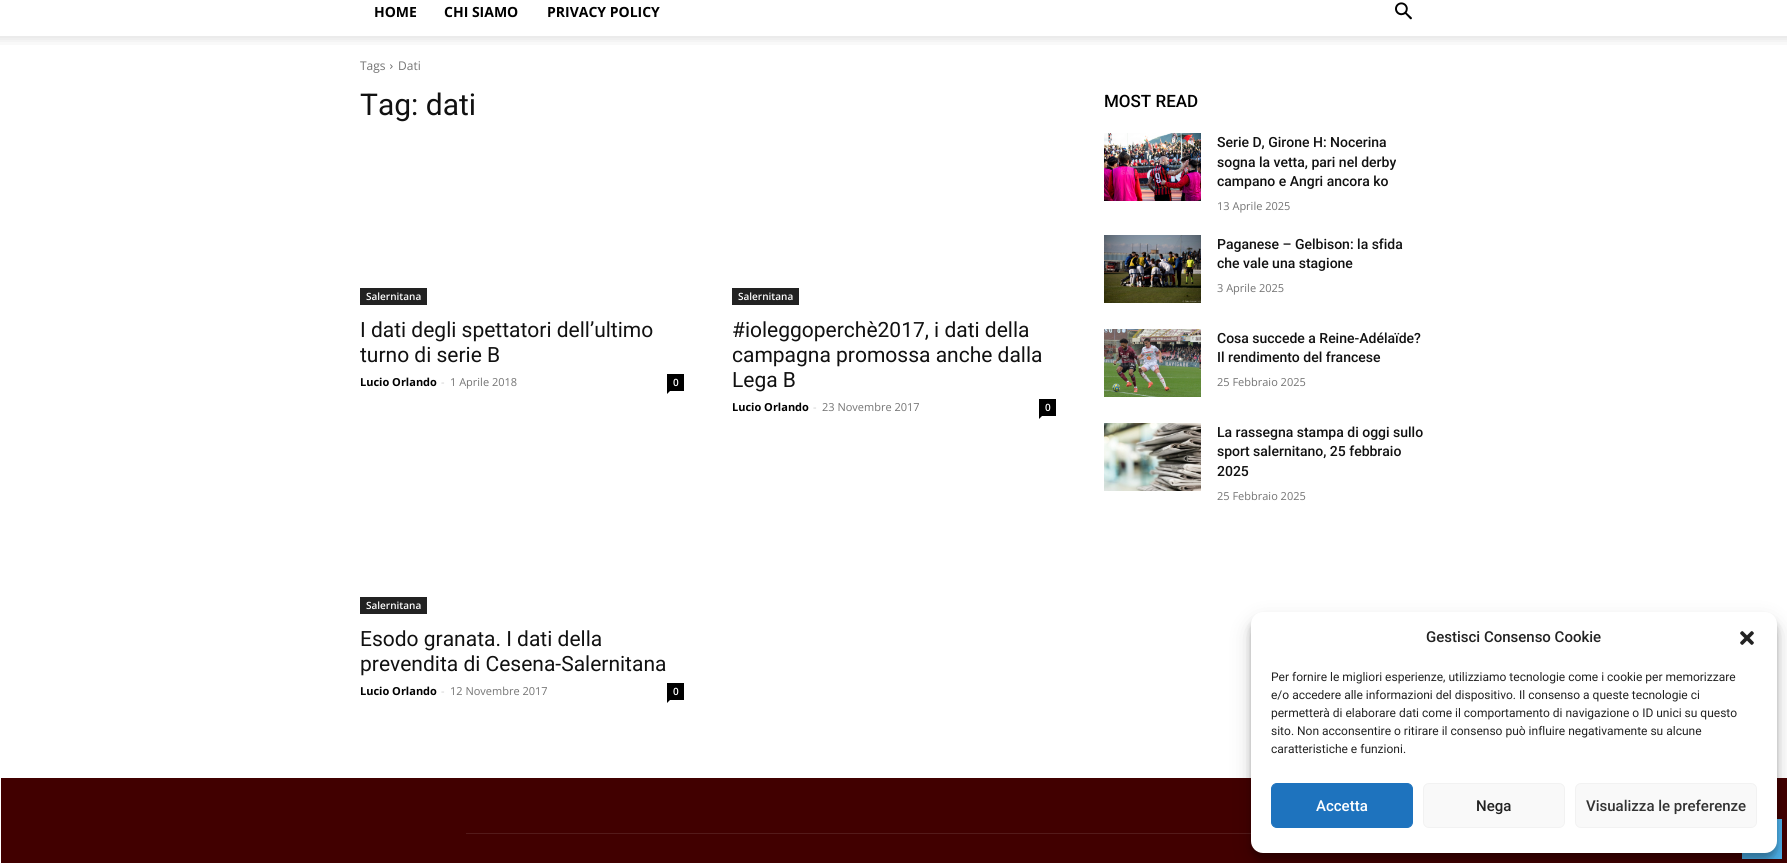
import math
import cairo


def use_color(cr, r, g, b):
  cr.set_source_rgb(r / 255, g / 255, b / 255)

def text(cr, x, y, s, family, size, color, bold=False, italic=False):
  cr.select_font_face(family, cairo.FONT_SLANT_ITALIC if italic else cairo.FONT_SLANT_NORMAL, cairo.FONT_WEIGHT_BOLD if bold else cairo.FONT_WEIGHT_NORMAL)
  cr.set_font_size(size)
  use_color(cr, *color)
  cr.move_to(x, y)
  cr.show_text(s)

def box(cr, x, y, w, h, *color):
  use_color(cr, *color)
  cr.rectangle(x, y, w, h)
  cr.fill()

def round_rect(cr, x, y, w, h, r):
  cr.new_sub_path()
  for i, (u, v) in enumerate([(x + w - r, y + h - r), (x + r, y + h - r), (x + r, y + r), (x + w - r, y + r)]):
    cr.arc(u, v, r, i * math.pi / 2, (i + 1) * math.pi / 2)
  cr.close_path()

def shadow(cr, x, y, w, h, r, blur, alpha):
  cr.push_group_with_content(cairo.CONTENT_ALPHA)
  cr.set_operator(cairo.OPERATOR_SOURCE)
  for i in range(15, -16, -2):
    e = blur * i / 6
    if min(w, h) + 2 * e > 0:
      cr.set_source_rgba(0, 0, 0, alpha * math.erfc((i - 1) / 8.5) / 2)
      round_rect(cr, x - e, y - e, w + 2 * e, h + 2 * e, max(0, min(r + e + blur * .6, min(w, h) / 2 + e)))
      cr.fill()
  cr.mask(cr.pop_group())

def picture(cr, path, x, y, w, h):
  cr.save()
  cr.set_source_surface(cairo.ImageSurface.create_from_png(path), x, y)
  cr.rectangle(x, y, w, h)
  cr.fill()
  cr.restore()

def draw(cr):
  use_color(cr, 255, 255, 255)
  cr.paint()
  picture(cr, "img_01.png", 1395, 2, 17, 18)
  picture(cr, "img_02.png", 0, 36, 1787, 9)
  picture(cr, "img_03.png", 390, 64, 3, 5)
  box(cr, 360, 288, 67, 17, 34, 34, 34)
  box(cr, 667, 374, 17, 17, 0, 0, 0)
  cr.new_path()
  cr.move_to(667, 391)
  cr.line_to(670, 391)
  cr.line_to(667, 394)
  cr.close_path()
  cr.fill()
  box(cr, 732, 288, 67, 17, 34, 34, 34)
  box(cr, 1039, 399, 17, 17, 0, 0, 0)
  cr.new_path()
  cr.move_to(1039, 416)
  cr.line_to(1042, 416)
  cr.line_to(1039, 419)
  cr.close_path()
  cr.fill()
  box(cr, 360, 597, 67, 17, 34, 34, 34)
  box(cr, 667, 683, 17, 17, 0, 0, 0)
  cr.new_path()
  cr.move_to(667, 700)
  cr.line_to(670, 700)
  cr.line_to(667, 703)
  cr.close_path()
  cr.fill()
  picture(cr, "img_04.png", 1104, 133, 97, 68)
  picture(cr, "img_05.png", 1104, 235, 97, 68)
  picture(cr, "img_06.png", 1104, 329, 97, 68)
  picture(cr, "img_07.png", 1104, 423, 97, 68)
  box(cr, 1, 778, 1786, 85, 65, 0, 0)
  box(cr, 466, 833, 785, 1, 84, 26, 26)
  box(cr, 1742, 819, 40, 40, 77, 178, 236)
  use_color(cr, 0, 0, 0)
  shadow(cr, 1251, 618, 526, 241, 12, 3, 0.23)
  shadow(cr, 1251, 622, 526, 241, 12, 10, 0.19)
  use_color(cr, 255, 255, 255)
  round_rect(cr, 1251, 612, 526, 241, 12)
  cr.fill()
  picture(cr, "img_08.png", 1740, 631, 14, 14)
  use_color(cr, 30, 115, 190)
  round_rect(cr, 1271.5, 783.5, 141, 44, 5.5)
  cr.fill_preserve()
  cr.set_line_width(1)
  cr.stroke()
  use_color(cr, 249, 249, 249)
  round_rect(cr, 1423.5, 783.5, 141, 44, 5.5)
  cr.fill_preserve()
  use_color(cr, 242, 242, 242)
  cr.stroke()
  use_color(cr, 249, 249, 249)
  round_rect(cr, 1575.5, 783.5, 181, 44, 5.5)
  cr.fill_preserve()
  use_color(cr, 242, 242, 242)
  cr.stroke()
  text(cr, 374, 17, "HOME", "Open Sans", 14, (0, 0, 0), bold=True)
  text(cr, 444, 17, "CHI SIAMO", "Open Sans", 14, (0, 0, 0), bold=True)
  text(cr, 547, 17, "PRIVACY POLICY", "Open Sans", 14, (0, 0, 0), bold=True)
  text(cr, 360, 70, "Tags", "Open Sans", 12, (116, 116, 116))
  text(cr, 398, 70, "Dati", "Open Sans", 12, (116, 116, 116))
  text(cr, 360, 115, "Tag: dati", "Roboto", 30, (17, 17, 17))
  text(cr, 366, 300, "Salernitana", "Open Sans SemiBold", 10, (255, 255, 255))
  text(cr, 360, 337, "I dati degli spettatori dell’ultimo", "Roboto", 21, (17, 17, 17))
  text(cr, 360, 362, "turno di serie B", "Roboto", 21, (17, 17, 17))
  text(cr, 360, 386, "Lucio Orlando", "Open Sans", 11, (0, 0, 0), bold=True)
  text(cr, 441, 386, "-", "Open Sans", 11, (204, 204, 204))
  text(cr, 450, 386, "1 Aprile 2018", "Open Sans", 11, (116, 116, 116))
  text(cr, 673, 386, "0", "Open Sans SemiBold", 10, (255, 255, 255))
  text(cr, 738, 300, "Salernitana", "Open Sans SemiBold", 10, (255, 255, 255))
  text(cr, 732, 337, "#ioleggoperchè2017, i dati della", "Roboto", 21, (17, 17, 17))
  text(cr, 732, 362, "campagna promossa anche dalla", "Roboto", 21, (17, 17, 17))
  text(cr, 732, 387, "Lega B", "Roboto", 21, (17, 17, 17))
  text(cr, 732, 411, "Lucio Orlando", "Open Sans", 11, (0, 0, 0), bold=True)
  text(cr, 813, 411, "-", "Open Sans", 11, (204, 204, 204))
  text(cr, 822, 411, "23 Novembre 2017", "Open Sans", 11, (116, 116, 116))
  text(cr, 1045, 411, "0", "Open Sans SemiBold", 10, (255, 255, 255))
  text(cr, 366, 609, "Salernitana", "Open Sans SemiBold", 10, (255, 255, 255))
  text(cr, 360, 646, "Esodo granata. I dati della", "Roboto", 21, (17, 17, 17))
  text(cr, 360, 671, "prevendita di Cesena-Salernitana", "Roboto", 21, (17, 17, 17))
  text(cr, 360, 695, "Lucio Orlando", "Open Sans", 11, (0, 0, 0), bold=True)
  text(cr, 441, 695, "-", "Open Sans", 11, (204, 204, 204))
  text(cr, 450, 695, "12 Novembre 2017", "Open Sans", 11, (116, 116, 116))
  text(cr, 673, 695, "0", "Open Sans SemiBold", 10, (255, 255, 255))
  text(cr, 1104, 107, "MOST READ", "Roboto Medium", 17, (0, 0, 0))
  text(cr, 1217, 147, "Serie D, Girone H: Nocerina", "Roboto Medium", 14, (17, 17, 17))
  text(cr, 1217, 167, "sogna la vetta, pari nel derby", "Roboto Medium", 14, (17, 17, 17))
  text(cr, 1217, 186, "campano e Angri ancora ko", "Roboto Medium", 14, (17, 17, 17))
  text(cr, 1217, 210, "13 Aprile 2025", "Open Sans", 11, (116, 116, 116))
  text(cr, 1217, 249, "Paganese – Gelbison: la sfida", "Roboto Medium", 14, (17, 17, 17))
  text(cr, 1217, 268, "che vale una stagione", "Roboto Medium", 14, (17, 17, 17))
  text(cr, 1217, 292, "3 Aprile 2025", "Open Sans", 11, (116, 116, 116))
  text(cr, 1217, 343, "Cosa succede a Reine-Adélaïde?", "Roboto Medium", 14, (17, 17, 17))
  text(cr, 1217, 362, "Il rendimento del francese", "Roboto Medium", 14, (17, 17, 17))
  text(cr, 1217, 386, "25 Febbraio 2025", "Open Sans", 11, (116, 116, 116))
  text(cr, 1217, 437, "La rassegna stampa di oggi sullo", "Roboto Medium", 14, (17, 17, 17))
  text(cr, 1217, 456, "sport salernitano, 25 febbraio", "Roboto Medium", 14, (17, 17, 17))
  text(cr, 1217, 476, "2025", "Roboto Medium", 14, (17, 17, 17))
  text(cr, 1217, 500, "25 Febbraio 2025", "Open Sans", 11, (116, 116, 116))
  text(cr, 1426, 642, "Gestisci Consenso Cookie", "Roboto Medium", 15, (34, 34, 34))
  text(cr, 1271, 681, "Per fornire le migliori esperienze, utilizziamo tecnologie come i cookie per memorizzare", "Roboto", 12, (34, 34, 34))
  text(cr, 1271, 699, "e/o accedere alle informazioni del dispositivo. Il consenso a queste tecnologie ci", "Roboto", 12, (34, 34, 34))
  text(cr, 1271, 717, "permetterà di elaborare dati come il comportamento di navigazione o ID unici su questo", "Roboto", 12, (34, 34, 34))
  text(cr, 1271, 735, "sito. Non acconsentire o ritirare il consenso può influire negativamente su alcune", "Roboto", 12, (34, 34, 34))
  text(cr, 1271, 753, "caratteristiche e funzioni.", "Roboto", 12, (34, 34, 34))
  text(cr, 1316, 811, "Accetta", "Roboto Medium", 15, (255, 255, 255))
  text(cr, 1476, 811, "Nega", "Roboto Medium", 15, (34, 34, 34))
  text(cr, 1586, 811, "Visualizza le preferenze", "Roboto Medium", 15, (51, 51, 51))


surface = cairo.ImageSurface(cairo.FORMAT_RGB24, 1787, 863)
cr = cairo.Context(surface)
options = cairo.FontOptions()
options.set_hint_metrics(cairo.HINT_METRICS_OFF)
options.set_hint_style(cairo.HINT_STYLE_NONE)
cr.set_font_options(options)
cr.set_miter_limit(4)
draw(cr)
surface.write_to_png("out.png")
